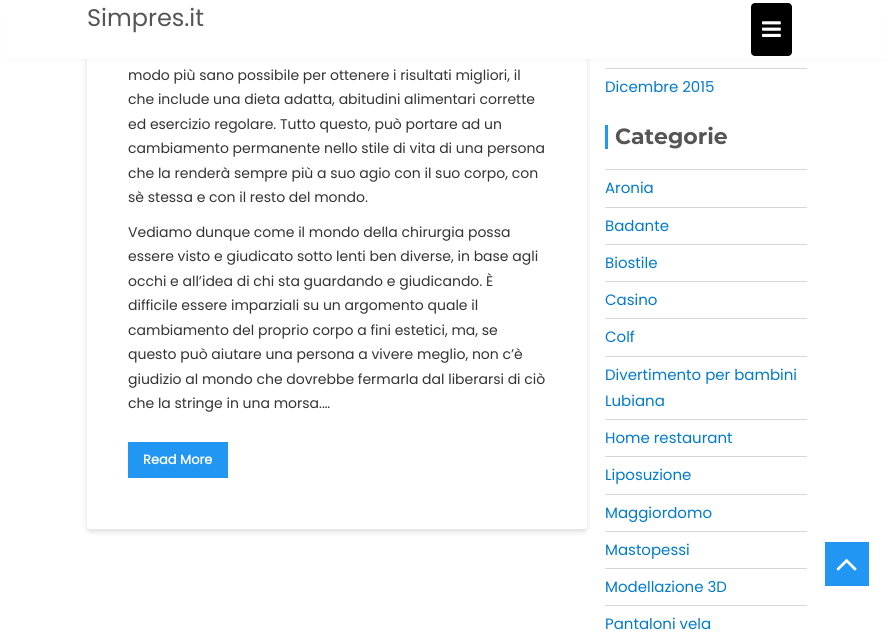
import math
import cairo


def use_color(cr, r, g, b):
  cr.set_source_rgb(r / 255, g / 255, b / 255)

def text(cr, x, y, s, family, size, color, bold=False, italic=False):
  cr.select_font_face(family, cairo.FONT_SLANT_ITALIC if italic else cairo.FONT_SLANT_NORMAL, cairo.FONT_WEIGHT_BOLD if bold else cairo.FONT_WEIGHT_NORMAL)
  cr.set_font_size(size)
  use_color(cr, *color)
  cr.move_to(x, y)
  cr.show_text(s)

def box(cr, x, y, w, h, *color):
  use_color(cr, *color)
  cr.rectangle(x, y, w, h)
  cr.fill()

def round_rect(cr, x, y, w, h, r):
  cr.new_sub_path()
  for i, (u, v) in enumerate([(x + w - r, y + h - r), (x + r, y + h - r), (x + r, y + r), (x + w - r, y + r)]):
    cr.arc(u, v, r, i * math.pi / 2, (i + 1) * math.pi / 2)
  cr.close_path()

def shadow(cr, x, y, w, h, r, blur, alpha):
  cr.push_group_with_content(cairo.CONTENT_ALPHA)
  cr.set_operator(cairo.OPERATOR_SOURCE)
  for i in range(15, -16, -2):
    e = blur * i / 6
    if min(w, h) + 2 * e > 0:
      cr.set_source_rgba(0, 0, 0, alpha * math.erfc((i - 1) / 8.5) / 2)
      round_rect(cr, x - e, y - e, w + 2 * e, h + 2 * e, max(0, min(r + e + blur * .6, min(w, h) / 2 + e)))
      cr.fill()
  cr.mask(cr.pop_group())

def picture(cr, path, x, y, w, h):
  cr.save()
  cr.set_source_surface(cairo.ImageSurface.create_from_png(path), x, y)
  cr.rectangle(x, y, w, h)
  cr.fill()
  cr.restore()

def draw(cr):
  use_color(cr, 255, 255, 255)
  cr.paint()
  use_color(cr, 0, 0, 0)
  shadow(cr, 87, -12, 500, 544, 4, 2.5, 0.13)
  use_color(cr, 255, 255, 255)
  round_rect(cr, 87, -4, 500, 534, 4)
  cr.fill()
  use_color(cr, 238, 238, 238)
  shadow(cr, 10, 20, 874, 39, 0, 2, 0.9)
  box(cr, 8, 0, 878, 59, 255, 255, 255)
  use_color(cr, 0, 0, 0)
  round_rect(cr, 751, 3, 41, 53, 4)
  cr.fill()
  picture(cr, "img_01.png", 762, 21, 19, 16)
  box(cr, 89, 529, 496, 1, 229, 229, 229)
  box(cr, 128, 442, 100, 36, 33, 150, 243)
  box(cr, 605, 68, 202, 1, 215, 215, 215)
  box(cr, 605, 125, 3, 24, 33, 150, 243)
  box(cr, 605, 169, 202, 1, 215, 215, 215)
  box(cr, 605, 207, 202, 1, 215, 215, 215)
  box(cr, 605, 244, 202, 1, 215, 215, 215)
  box(cr, 605, 281, 202, 1, 215, 215, 215)
  box(cr, 605, 318, 202, 1, 215, 215, 215)
  box(cr, 605, 356, 202, 1, 215, 215, 215)
  box(cr, 605, 419, 202, 1, 215, 215, 215)
  box(cr, 605, 456, 202, 1, 215, 215, 215)
  box(cr, 605, 494, 202, 1, 215, 215, 215)
  box(cr, 605, 531, 202, 1, 215, 215, 215)
  box(cr, 605, 568, 202, 1, 215, 215, 215)
  box(cr, 605, 605, 202, 1, 215, 215, 215)
  box(cr, 825, 542, 44, 44, 33, 150, 243)
  picture(cr, "img_02.png", 836, 559, 21, 12)
  text(cr, 87, 26, "Simpres.it", "Poppins", 24, (85, 85, 85))
  text(cr, 128, 80, "modo più sano possibile per ottenere i risultati migliori, il", "Poppins", 14, (51, 51, 51))
  text(cr, 128, 104, "che include una dieta adatta, abitudini alimentari corrette", "Poppins", 14, (51, 51, 51))
  text(cr, 128, 129, "ed esercizio regolare. Tutto questo, può portare ad un", "Poppins", 14, (51, 51, 51))
  text(cr, 128, 153, "cambiamento permanente nello stile di vita di una persona", "Poppins", 14, (51, 51, 51))
  text(cr, 128, 178, "che la renderà sempre più a suo agio con il suo corpo, con", "Poppins", 14, (51, 51, 51))
  text(cr, 128, 202, "sè stessa e con il resto del mondo.", "Poppins", 14, (51, 51, 51))
  text(cr, 128, 237, "Vediamo dunque come il mondo della chirurgia possa", "Poppins", 14, (51, 51, 51))
  text(cr, 128, 261, "essere visto e giudicato sotto lenti ben diverse, in base agli", "Poppins", 14, (51, 51, 51))
  text(cr, 128, 286, "occhi e all’idea di chi sta guardando e giudicando. È", "Poppins", 14, (51, 51, 51))
  text(cr, 128, 310, "difficile essere imparziali su un argomento quale il", "Poppins", 14, (51, 51, 51))
  text(cr, 128, 335, "cambiamento del proprio corpo a fini estetici, ma, se", "Poppins", 14, (51, 51, 51))
  text(cr, 128, 359, "questo può aiutare una persona a vivere meglio, non c’è", "Poppins", 14, (51, 51, 51))
  text(cr, 128, 384, "giudizio al mondo che dovrebbe fermarla dal liberarsi di ciò", "Poppins", 14, (51, 51, 51))
  text(cr, 128, 408, "che la stringe in una morsa.…", "Poppins", 14, (51, 51, 51))
  text(cr, 143, 464, "Read More", "Poppins", 13, (255, 255, 255), bold=True)
  text(cr, 605, 92, "Dicembre 2015", "Poppins", 15, (0, 122, 204))
  text(cr, 615, 144, "Categorie", "Montserrat", 22, (85, 85, 85), bold=True)
  text(cr, 605, 193, "Aronia", "Poppins", 15, (0, 122, 204))
  text(cr, 605, 231, "Badante", "Poppins", 15, (0, 122, 204))
  text(cr, 605, 268, "Biostile", "Poppins", 15, (0, 122, 204))
  text(cr, 605, 305, "Casino", "Poppins", 15, (0, 122, 204))
  text(cr, 605, 342, "Colf", "Poppins", 15, (0, 122, 204))
  text(cr, 605, 380, "Divertimento per bambini", "Poppins", 15, (0, 122, 204))
  text(cr, 605, 406, "Lubiana", "Poppins", 15, (0, 122, 204))
  text(cr, 605, 443, "Home restaurant", "Poppins", 15, (0, 122, 204))
  text(cr, 605, 480, "Liposuzione", "Poppins", 15, (0, 122, 204))
  text(cr, 605, 518, "Maggiordomo", "Poppins", 15, (0, 122, 204))
  text(cr, 605, 555, "Mastopessi", "Poppins", 15, (0, 122, 204))
  text(cr, 605, 592, "Modellazione 3D", "Poppins", 15, (0, 122, 204))
  text(cr, 605, 629, "Pantaloni vela", "Poppins", 15, (0, 122, 204))


surface = cairo.ImageSurface(cairo.FORMAT_RGB24, 894, 638)
cr = cairo.Context(surface)
options = cairo.FontOptions()
options.set_hint_metrics(cairo.HINT_METRICS_OFF)
options.set_hint_style(cairo.HINT_STYLE_NONE)
cr.set_font_options(options)
cr.set_miter_limit(4)
draw(cr)
surface.write_to_png("out.png")
